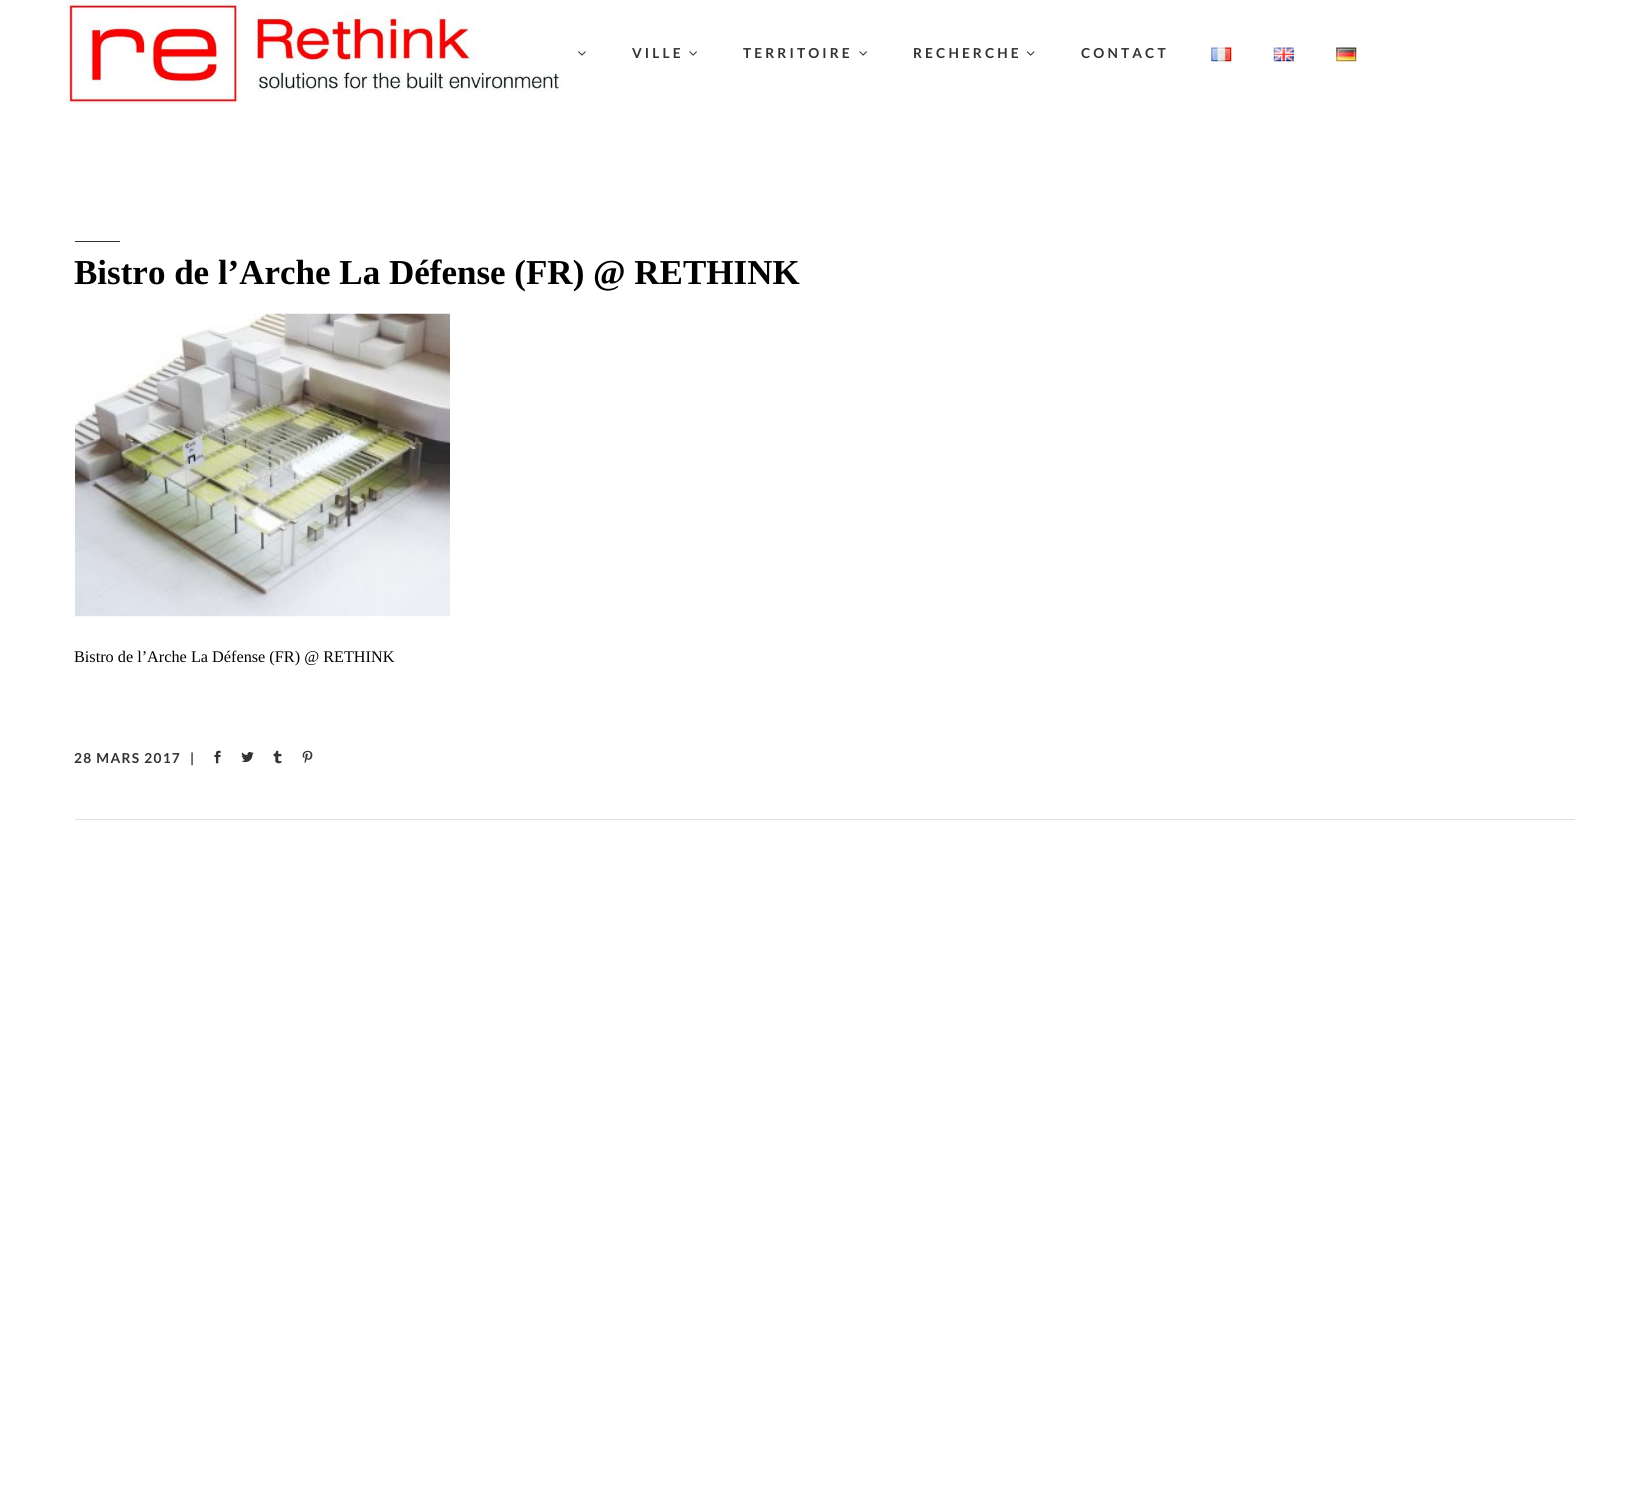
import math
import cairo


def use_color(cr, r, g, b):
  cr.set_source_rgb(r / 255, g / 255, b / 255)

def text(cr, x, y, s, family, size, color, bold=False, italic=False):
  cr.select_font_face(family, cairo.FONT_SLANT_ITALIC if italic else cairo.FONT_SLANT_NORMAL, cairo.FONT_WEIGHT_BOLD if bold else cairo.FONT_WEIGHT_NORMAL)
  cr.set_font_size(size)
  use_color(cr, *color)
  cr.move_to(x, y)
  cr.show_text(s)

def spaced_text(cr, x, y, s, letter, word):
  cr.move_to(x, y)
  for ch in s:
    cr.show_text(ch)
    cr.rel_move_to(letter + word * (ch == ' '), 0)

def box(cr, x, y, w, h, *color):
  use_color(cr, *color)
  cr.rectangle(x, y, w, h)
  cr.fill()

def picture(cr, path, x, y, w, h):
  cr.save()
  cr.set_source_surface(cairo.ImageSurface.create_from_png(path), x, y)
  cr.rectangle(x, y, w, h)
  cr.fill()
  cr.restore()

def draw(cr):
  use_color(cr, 255, 255, 255)
  cr.paint()
  picture(cr, "img_01.png", 66, 1, 501, 104)
  picture(cr, "img_02.png", 578, 51, 8, 5)
  picture(cr, "img_03.png", 689, 51, 8, 5)
  picture(cr, "img_03.png", 859, 51, 8, 5)
  picture(cr, "img_04.png", 1026, 51, 9, 5)
  picture(cr, "img_05.png", 1211, 47, 21, 15)
  picture(cr, "img_06.png", 1273, 47, 21, 15)
  picture(cr, "img_07.png", 1336, 47, 21, 15)
  box(cr, 75, 241, 45, 1, 51, 51, 51)
  picture(cr, "img_08.png", 75, 313, 375, 304)
  picture(cr, "img_09.png", 214, 750, 7, 14)
  picture(cr, "img_10.png", 241, 752, 13, 11)
  picture(cr, "img_11.png", 273, 750, 9, 14)
  picture(cr, "img_12.png", 302, 750, 11, 14)
  box(cr, 75, 819, 1500, 1, 221, 223, 225)
  cr.select_font_face("Lato", cairo.FONT_SLANT_NORMAL, cairo.FONT_WEIGHT_BOLD)
  cr.set_font_size(13.75)
  use_color(cr, 51, 51, 51)
  spaced_text(cr, 632, 58, "VILLE", 3.1, 0)
  spaced_text(cr, 743, 58, "TERRITOIRE", 3.1, 0)
  spaced_text(cr, 913, 58, "RECHERCHE", 3.1, 0)
  spaced_text(cr, 1081, 58, "CONTACT", 3.1, 0)
  text(cr, 74, 284, "Bistro de l’Arche La Défense (FR) @ RETHINK", "Liberation Serif", 35, (0, 0, 0), bold=True)
  text(cr, 74, 662, "Bistro de l’Arche La Défense (FR) @ RETHINK", "Liberation Serif", 16.25, (0, 0, 0))
  cr.select_font_face("Lato", cairo.FONT_SLANT_NORMAL, cairo.FONT_WEIGHT_BOLD)
  cr.set_font_size(13.75)
  use_color(cr, 51, 51, 51)
  spaced_text(cr, 74, 763, "28 MARS 2017", 1.25, 0)
  spaced_text(cr, 190, 763, "|", 1.25, 0)


surface = cairo.ImageSurface(cairo.FORMAT_RGB24, 1648, 1496)
cr = cairo.Context(surface)
options = cairo.FontOptions()
options.set_hint_metrics(cairo.HINT_METRICS_OFF)
options.set_hint_style(cairo.HINT_STYLE_NONE)
cr.set_font_options(options)
cr.set_miter_limit(4)
draw(cr)
surface.write_to_png("out.png")
